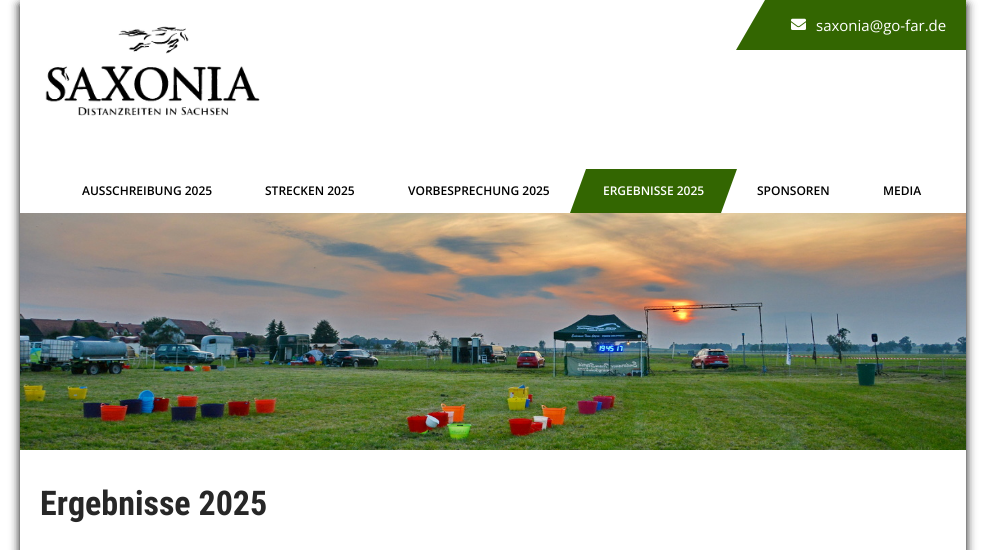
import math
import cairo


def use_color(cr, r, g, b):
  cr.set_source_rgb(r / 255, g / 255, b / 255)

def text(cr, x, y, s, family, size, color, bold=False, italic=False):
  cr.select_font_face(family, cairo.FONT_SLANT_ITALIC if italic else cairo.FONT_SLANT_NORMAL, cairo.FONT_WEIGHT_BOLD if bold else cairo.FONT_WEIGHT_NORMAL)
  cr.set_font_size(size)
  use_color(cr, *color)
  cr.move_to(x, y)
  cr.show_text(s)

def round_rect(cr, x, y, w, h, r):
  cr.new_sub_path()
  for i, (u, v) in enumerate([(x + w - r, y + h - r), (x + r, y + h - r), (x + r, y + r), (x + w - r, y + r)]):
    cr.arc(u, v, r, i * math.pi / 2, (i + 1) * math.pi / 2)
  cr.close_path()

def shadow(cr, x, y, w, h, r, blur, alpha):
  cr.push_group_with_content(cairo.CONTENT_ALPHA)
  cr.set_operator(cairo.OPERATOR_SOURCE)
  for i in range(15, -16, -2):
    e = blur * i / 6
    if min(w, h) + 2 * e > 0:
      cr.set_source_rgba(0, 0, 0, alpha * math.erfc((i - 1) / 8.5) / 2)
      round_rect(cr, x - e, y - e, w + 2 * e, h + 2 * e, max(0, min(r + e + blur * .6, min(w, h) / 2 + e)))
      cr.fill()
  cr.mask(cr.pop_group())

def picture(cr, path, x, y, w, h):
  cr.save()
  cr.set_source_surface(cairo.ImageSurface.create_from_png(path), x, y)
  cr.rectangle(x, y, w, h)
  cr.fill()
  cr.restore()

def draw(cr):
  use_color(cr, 255, 255, 255)
  cr.paint()
  cr.save()
  cr.set_fill_rule(cairo.FILL_RULE_EVEN_ODD)
  cr.new_path()
  cr.move_to(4, 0)
  cr.line_to(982, 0)
  cr.line_to(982, 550)
  cr.line_to(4, 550)
  cr.close_path()
  cr.move_to(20, 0)
  cr.line_to(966, 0)
  cr.line_to(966, 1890)
  cr.line_to(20, 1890)
  cr.close_path()
  cr.clip()
  use_color(cr, 0, 0, 0)
  shadow(cr, 20, 5, 946, 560, 0, 5, 1)
  cr.restore()
  picture(cr, "img_01.png", 45, 26, 215, 90)
  use_color(cr, 51, 102, 1)
  cr.new_path()
  cr.move_to(765, 0)
  cr.line_to(960, 0)
  cr.line_to(932, 50)
  cr.line_to(736, 50)
  cr.close_path()
  cr.fill()
  cr.save()
  cr.rectangle(20, 0, 946, 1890)
  cr.clip()
  cr.new_path()
  cr.move_to(949, 0)
  cr.line_to(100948, 0)
  cr.line_to(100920, 50)
  cr.line_to(921, 50)
  cr.close_path()
  cr.fill()
  cr.restore()
  picture(cr, "img_02.png", 791, 18, 15, 12)
  cr.new_path()
  cr.move_to(586, 169)
  cr.line_to(737, 169)
  cr.line_to(721, 213)
  cr.line_to(570, 213)
  cr.close_path()
  cr.fill()
  picture(cr, "img_03.png", 20, 213, 946, 237)
  text(cr, 816, 31, "saxonia@go-far.de", "Open Sans", 15, (255, 255, 255))
  text(cr, 82, 195, "AUSSCHREIBUNG 2025", "Open Sans SemiBold", 12, (0, 0, 0))
  text(cr, 265, 195, "STRECKEN 2025", "Open Sans SemiBold", 12, (0, 0, 0))
  text(cr, 408, 195, "VORBESPRECHUNG 2025", "Open Sans SemiBold", 12, (0, 0, 0))
  text(cr, 603, 195, "ERGEBNISSE 2025", "Open Sans SemiBold", 12, (255, 255, 255))
  text(cr, 757, 195, "SPONSOREN", "Open Sans SemiBold", 12, (0, 0, 0))
  text(cr, 883, 195, "MEDIA", "Open Sans SemiBold", 12, (0, 0, 0))
  text(cr, 40, 515, "Ergebnisse 2025", "Roboto Condensed", 34, (39, 39, 39), bold=True)


surface = cairo.ImageSurface(cairo.FORMAT_RGB24, 986, 550)
cr = cairo.Context(surface)
options = cairo.FontOptions()
options.set_hint_metrics(cairo.HINT_METRICS_OFF)
options.set_hint_style(cairo.HINT_STYLE_NONE)
cr.set_font_options(options)
cr.set_miter_limit(4)
draw(cr)
surface.write_to_png("out.png")
